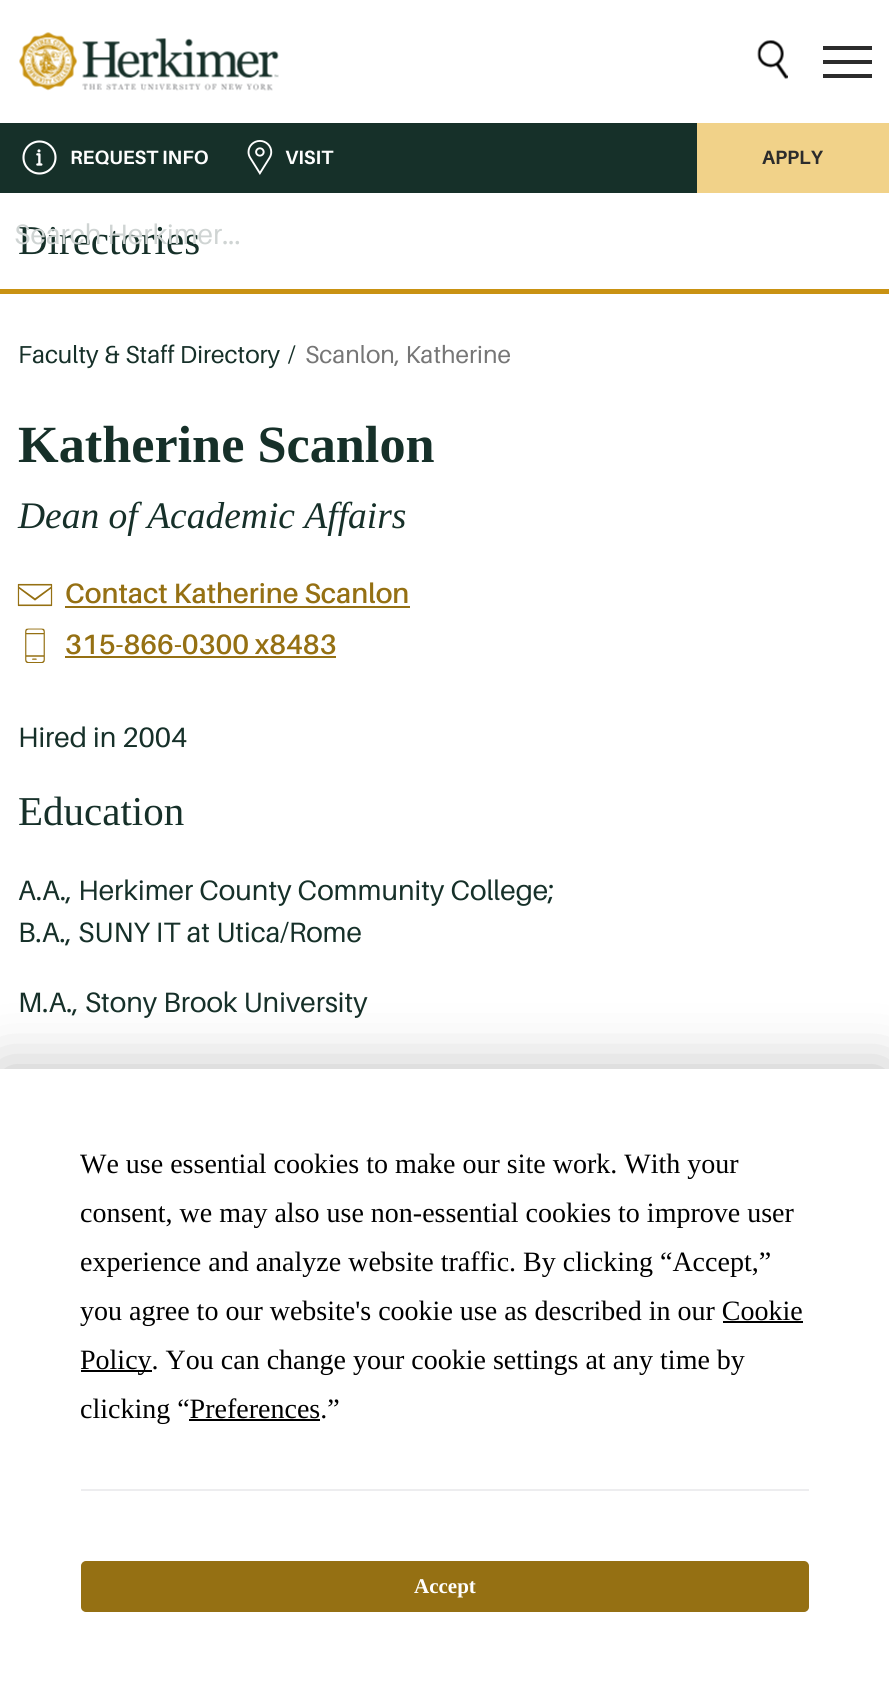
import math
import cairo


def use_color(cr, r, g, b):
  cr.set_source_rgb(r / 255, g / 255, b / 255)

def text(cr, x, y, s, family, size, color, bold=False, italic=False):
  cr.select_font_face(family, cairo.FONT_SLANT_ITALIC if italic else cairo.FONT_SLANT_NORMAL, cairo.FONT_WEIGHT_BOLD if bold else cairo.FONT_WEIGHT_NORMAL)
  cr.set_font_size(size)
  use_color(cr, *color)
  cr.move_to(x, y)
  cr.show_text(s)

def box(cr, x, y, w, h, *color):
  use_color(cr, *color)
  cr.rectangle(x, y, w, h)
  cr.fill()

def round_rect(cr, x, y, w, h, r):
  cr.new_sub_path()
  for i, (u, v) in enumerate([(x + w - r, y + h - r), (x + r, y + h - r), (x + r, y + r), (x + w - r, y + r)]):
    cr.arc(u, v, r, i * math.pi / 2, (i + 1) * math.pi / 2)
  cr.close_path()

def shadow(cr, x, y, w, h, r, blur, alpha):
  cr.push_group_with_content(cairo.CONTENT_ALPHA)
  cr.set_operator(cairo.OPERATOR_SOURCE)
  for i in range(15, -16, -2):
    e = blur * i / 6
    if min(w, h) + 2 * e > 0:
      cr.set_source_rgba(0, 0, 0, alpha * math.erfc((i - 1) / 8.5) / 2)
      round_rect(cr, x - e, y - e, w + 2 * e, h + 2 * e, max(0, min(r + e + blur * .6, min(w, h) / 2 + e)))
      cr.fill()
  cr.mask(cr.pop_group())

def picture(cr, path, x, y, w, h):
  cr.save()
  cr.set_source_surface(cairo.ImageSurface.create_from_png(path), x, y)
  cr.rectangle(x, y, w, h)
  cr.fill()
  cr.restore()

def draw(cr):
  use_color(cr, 255, 255, 255)
  cr.paint()
  picture(cr, "img_01.png", 19, 32, 260, 59)
  picture(cr, "img_02.png", 757, 40, 31, 39)
  box(cr, 823, 74, 49, 4, 44, 44, 44)
  box(cr, 823, 60, 49, 4, 44, 44, 44)
  box(cr, 823, 46, 49, 4, 44, 44, 44)
  box(cr, 0, 123, 697, 70, 22, 48, 41)
  picture(cr, "img_03.png", 22, 140, 35, 35)
  picture(cr, "img_04.png", 247, 140, 26, 35)
  box(cr, 697, 123, 192, 70, 241, 210, 137)
  box(cr, 0, 289, 889, 5, 201, 146, 18)
  picture(cr, "img_05.png", 17, 583, 36, 24)
  box(cr, 65, 606, 345, 2, 149, 112, 19)
  picture(cr, "img_06.png", 25, 628, 20, 35)
  box(cr, 65, 656, 271, 2, 149, 112, 19)
  use_color(cr, 0, 0, 0)
  shadow(cr, 0, 1069, 889, 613, 0, 30.5, 0.25)
  box(cr, 0, 1069, 889, 612, 255, 255, 255)
  box(cr, 723, 1321, 80, 2, 0, 0, 0)
  box(cr, 81, 1370, 71, 2, 0, 0, 0)
  box(cr, 189, 1419, 131, 2, 0, 0, 0)
  box(cr, 81, 1489, 728, 2, 237, 237, 239)
  use_color(cr, 149, 112, 19)
  round_rect(cr, 82, 1562, 726, 49, 4)
  cr.fill_preserve()
  cr.stroke()
  text(cr, 70, 164, "REQUEST INFO", "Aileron", 19.25, (254, 254, 254), bold=True)
  text(cr, 285, 164, "VISIT", "Aileron", 19.25, (254, 254, 254), bold=True)
  text(cr, 762, 164, "APPLY", "Aileron", 19.25, (44, 44, 44), bold=True)
  text(cr, 18, 254, "Directories", "Liberation Serif", 41, (22, 48, 41))
  text(cr, 14, 244, "Search Herkimer...", "Aileron", 28, (207, 212, 211))
  text(cr, 18, 363, "Faculty & Staff Directory", "Aileron", 24.5, (22, 48, 41))
  text(cr, 288, 363, "/", "Aileron", 24.5, (22, 48, 41))
  text(cr, 305, 363, "Scanlon, Katherine", "Aileron", 24.5, (118, 118, 118))
  text(cr, 18, 462, "Katherine Scanlon", "Liberation Serif", 52.25, (22, 48, 41), bold=True)
  text(cr, 18, 528, "Dean of Academic Affairs", "Liberation Serif", 37.5, (22, 48, 41), italic=True)
  text(cr, 65, 603, "Contact Katherine Scanlon", "Aileron SemiBold", 28, (149, 112, 19))
  text(cr, 65, 654, "315-866-0300 x8483", "Aileron SemiBold", 28, (149, 112, 19))
  text(cr, 18, 747, "Hired in 2004", "Aileron", 28, (22, 48, 41))
  text(cr, 18, 825, "Education", "Liberation Serif", 41, (22, 48, 41))
  text(cr, 18, 900, "A.A., Herkimer County Community College;", "Aileron", 28, (22, 48, 41))
  text(cr, 18, 942, "B.A., SUNY IT at Utica/Rome", "Aileron", 28, (22, 48, 41))
  text(cr, 18, 1012, "M.A., Stony Brook University", "Aileron", 28, (22, 48, 41))
  text(cr, 80, 1173, "We use essential cookies to make our site work. With your", "Liberation Serif", 28, (0, 0, 0))
  text(cr, 80, 1222, "consent, we may also use non-essential cookies to improve user", "Liberation Serif", 28, (0, 0, 0))
  text(cr, 80, 1271, "experience and analyze website traffic. By clicking “Accept,”", "Liberation Serif", 28, (0, 0, 0))
  text(cr, 80, 1320, "you agree to our website's cookie use as described in our Cookie", "Liberation Serif", 28, (0, 0, 0))
  text(cr, 80, 1369, "Policy. You can change your cookie settings at any time by", "Liberation Serif", 28, (0, 0, 0))
  text(cr, 80, 1418, "clicking “Preferences.”", "Liberation Serif", 28, (0, 0, 0))
  text(cr, 414, 1593, "Accept", "Liberation Serif", 21, (254, 254, 254), bold=True)


surface = cairo.ImageSurface(cairo.FORMAT_RGB24, 889, 1681)
cr = cairo.Context(surface)
options = cairo.FontOptions()
options.set_hint_metrics(cairo.HINT_METRICS_OFF)
options.set_hint_style(cairo.HINT_STYLE_NONE)
cr.set_font_options(options)
cr.set_miter_limit(4)
draw(cr)
surface.write_to_png("out.png")
